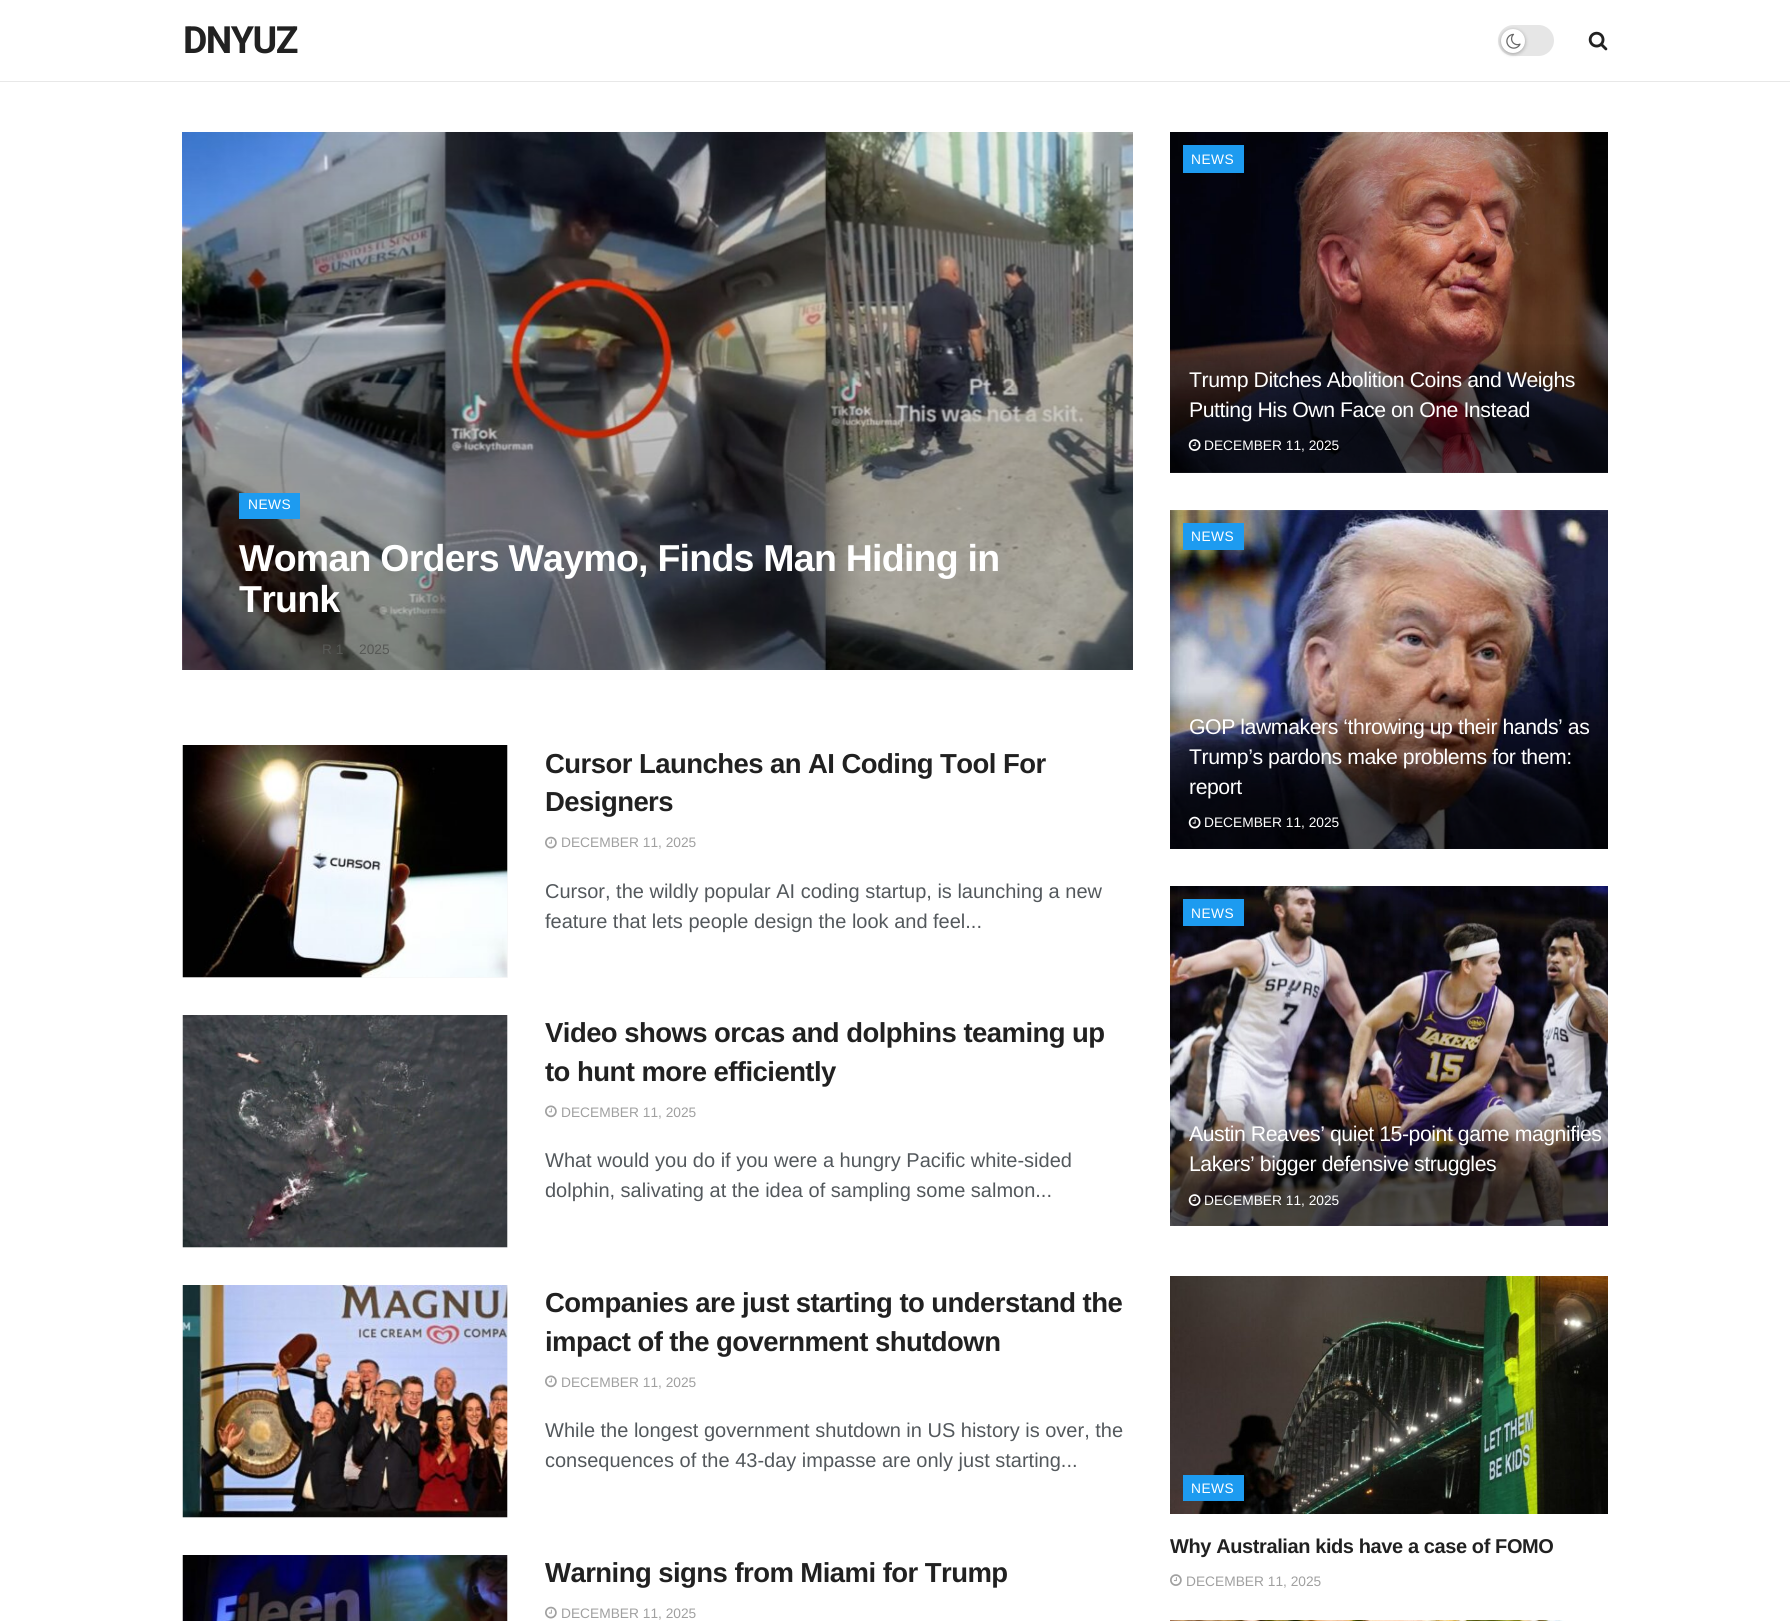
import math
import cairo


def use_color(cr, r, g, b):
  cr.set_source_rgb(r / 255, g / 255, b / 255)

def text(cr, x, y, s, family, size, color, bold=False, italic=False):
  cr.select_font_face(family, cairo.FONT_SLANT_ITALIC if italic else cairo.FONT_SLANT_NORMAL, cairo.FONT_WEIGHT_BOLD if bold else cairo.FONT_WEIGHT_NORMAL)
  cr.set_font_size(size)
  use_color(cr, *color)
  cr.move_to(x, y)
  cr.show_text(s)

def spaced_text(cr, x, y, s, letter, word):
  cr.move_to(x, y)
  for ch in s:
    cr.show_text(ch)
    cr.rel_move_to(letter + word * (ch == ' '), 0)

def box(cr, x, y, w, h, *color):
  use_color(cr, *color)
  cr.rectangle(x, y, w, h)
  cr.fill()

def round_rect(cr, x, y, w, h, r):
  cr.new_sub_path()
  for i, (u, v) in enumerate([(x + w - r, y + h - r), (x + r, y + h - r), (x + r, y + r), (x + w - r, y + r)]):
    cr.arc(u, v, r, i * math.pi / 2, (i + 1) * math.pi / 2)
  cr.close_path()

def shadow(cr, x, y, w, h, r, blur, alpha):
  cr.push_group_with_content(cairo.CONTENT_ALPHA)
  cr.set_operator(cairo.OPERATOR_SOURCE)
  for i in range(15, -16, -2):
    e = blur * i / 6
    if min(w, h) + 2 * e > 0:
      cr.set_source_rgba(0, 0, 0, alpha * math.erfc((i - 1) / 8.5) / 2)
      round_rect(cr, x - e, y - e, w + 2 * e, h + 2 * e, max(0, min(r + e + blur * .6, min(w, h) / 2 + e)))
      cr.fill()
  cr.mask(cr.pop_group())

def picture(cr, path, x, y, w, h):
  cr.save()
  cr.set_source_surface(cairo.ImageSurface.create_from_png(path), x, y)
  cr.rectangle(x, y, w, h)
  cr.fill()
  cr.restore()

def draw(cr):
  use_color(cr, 255, 255, 255)
  cr.paint()
  box(cr, 0, 81, 1790, 1, 232, 232, 232)
  use_color(cr, 230, 230, 230)
  round_rect(cr, 1498, 25, 56, 31, 15.5)
  cr.fill()
  use_color(cr, 0, 0, 0)
  shadow(cr, 1501, 30, 24, 24, 12, 2, 0.3)
  use_color(cr, 255, 255, 255)
  cr.arc(1513, 41, 12, 0, 2 * math.pi)
  cr.fill()
  picture(cr, "img_01.png", 1506, 33, 15, 16)
  picture(cr, "img_02.png", 1588, 31, 20, 20)
  picture(cr, "img_03.png", 182, 132, 951, 538)
  box(cr, 239, 493, 61, 26, 29, 155, 240)
  box(cr, 183, 745, 325, 233, 247, 247, 247)
  picture(cr, "img_04.png", 182, 745, 326, 233)
  picture(cr, "img_05.png", 545, 836, 12, 13)
  box(cr, 183, 1015, 325, 233, 247, 247, 247)
  picture(cr, "img_06.png", 182, 1015, 326, 233)
  picture(cr, "img_07.png", 545, 1105, 12, 13)
  box(cr, 183, 1285, 325, 233, 247, 247, 247)
  picture(cr, "img_08.png", 182, 1285, 326, 233)
  picture(cr, "img_07.png", 545, 1375, 12, 13)
  box(cr, 507, 1555, 1, 66, 247, 247, 247)
  picture(cr, "img_09.png", 182, 1555, 326, 66)
  picture(cr, "img_05.png", 545, 1606, 12, 13)
  picture(cr, "img_10.png", 1170, 132, 438, 341)
  box(cr, 1183, 145, 61, 28, 29, 155, 240)
  gradient = cairo.LinearGradient(1408, 341, 1408, 473)
  gradient.add_color_stop_rgba(0, 0, 0, 0, 0)
  gradient.add_color_stop_rgba(0.7, 0, 0, 0, 0.65)
  cr.set_source(gradient)
  cr.rectangle(1170, 344, 438, 129)
  cr.fill()
  picture(cr, "img_11.png", 1188, 439, 13, 12)
  picture(cr, "img_12.png", 1170, 510, 438, 339)
  box(cr, 1183, 523, 61, 27, 29, 155, 240)
  picture(cr, "img_13.png", 1188, 816, 13, 13)
  picture(cr, "img_14.png", 1170, 886, 438, 340)
  box(cr, 1183, 899, 61, 27, 29, 155, 240)
  picture(cr, "img_15.png", 1188, 1194, 13, 12)
  picture(cr, "img_16.png", 1170, 1276, 438, 238)
  box(cr, 1183, 1475, 61, 26, 29, 155, 240)
  picture(cr, "img_17.png", 1170, 1574, 12, 12)
  picture(cr, "img_18.png", 1170, 1620, 438, 1)
  cr.select_font_face("Roboto", cairo.FONT_SLANT_NORMAL, cairo.FONT_WEIGHT_BOLD)
  cr.set_font_size(37.5)
  use_color(cr, 33, 33, 33)
  spaced_text(cr, 183, 53, "DNYUZ", -1.5, 0)
  cr.select_font_face("Liberation Sans")
  cr.set_font_size(13.75)
  use_color(cr, 255, 255, 255)
  spaced_text(cr, 248, 509, "NEWS", 0.5, 0)
  cr.select_font_face("Liberation Sans", cairo.FONT_SLANT_NORMAL, cairo.FONT_WEIGHT_BOLD)
  cr.set_font_size(37.5)
  spaced_text(cr, 239, 571, "Woman Orders Waymo, Finds Man Hiding in", -0.75, 0)
  spaced_text(cr, 239, 612, "Trunk", -0.75, 0)
  text(cr, 322, 654, "R 1", "Liberation Sans", 13.75, (86, 88, 85))
  text(cr, 359, 654, "2025", "Liberation Sans", 13.75, (86, 88, 85))
  cr.select_font_face("Liberation Sans", cairo.FONT_SLANT_NORMAL, cairo.FONT_WEIGHT_BOLD)
  cr.set_font_size(27.5)
  use_color(cr, 33, 33, 33)
  spaced_text(cr, 545, 773, "Cursor Launches an AI Coding Tool For", -0.55, 0)
  spaced_text(cr, 545, 811, "Designers", -0.55, 0)
  text(cr, 561, 847, "DECEMBER 11, 2025", "Liberation Sans", 13.75, (160, 160, 160))
  text(cr, 545, 898, "Cursor, the wildly popular AI coding startup, is launching a new", "Liberation Sans", 20, (83, 88, 92))
  text(cr, 545, 928, "feature that lets people design the look and feel...", "Liberation Sans", 20, (83, 88, 92))
  cr.select_font_face("Liberation Sans", cairo.FONT_SLANT_NORMAL, cairo.FONT_WEIGHT_BOLD)
  cr.set_font_size(27.5)
  use_color(cr, 33, 33, 33)
  spaced_text(cr, 545, 1042, "Video shows orcas and dolphins teaming up", -0.55, 0)
  spaced_text(cr, 545, 1081, "to hunt more efficiently", -0.55, 0)
  text(cr, 561, 1117, "DECEMBER 11, 2025", "Liberation Sans", 13.75, (160, 160, 160))
  text(cr, 545, 1167, "What would you do if you were a hungry Pacific white-sided", "Liberation Sans", 20, (83, 88, 92))
  text(cr, 545, 1197, "dolphin, salivating at the idea of sampling some salmon...", "Liberation Sans", 20, (83, 88, 92))
  cr.select_font_face("Liberation Sans", cairo.FONT_SLANT_NORMAL, cairo.FONT_WEIGHT_BOLD)
  cr.set_font_size(27.5)
  use_color(cr, 33, 33, 33)
  spaced_text(cr, 545, 1312, "Companies are just starting to understand the", -0.55, 0)
  spaced_text(cr, 545, 1351, "impact of the government shutdown", -0.55, 0)
  text(cr, 561, 1387, "DECEMBER 11, 2025", "Liberation Sans", 13.75, (160, 160, 160))
  text(cr, 545, 1437, "While the longest government shutdown in US history is over, the", "Liberation Sans", 20, (83, 88, 92))
  text(cr, 545, 1467, "consequences of the 43-day impasse are only just starting...", "Liberation Sans", 20, (83, 88, 92))
  cr.select_font_face("Liberation Sans", cairo.FONT_SLANT_NORMAL, cairo.FONT_WEIGHT_BOLD)
  cr.set_font_size(27.5)
  use_color(cr, 33, 33, 33)
  spaced_text(cr, 545, 1582, "Warning signs from Miami for Trump", -0.55, 0)
  text(cr, 561, 1618, "DECEMBER 11, 2025", "Liberation Sans", 13.75, (160, 160, 160))
  use_color(cr, 255, 255, 255)
  spaced_text(cr, 1191, 164, "NEWS", 0.5, 0)
  cr.set_font_size(21.25)
  spaced_text(cr, 1189, 387, "Trump Ditches Abolition Coins and Weighs", -0.45, 0)
  spaced_text(cr, 1189, 417, "Putting His Own Face on One Instead", -0.45, 0)
  text(cr, 1204, 450, "DECEMBER 11, 2025", "Liberation Sans", 13.75, (255, 255, 255))
  spaced_text(cr, 1191, 541, "NEWS", 0.5, 0)
  cr.set_font_size(21.25)
  spaced_text(cr, 1189, 734, "GOP lawmakers ‘throwing up their hands’ as", -0.45, 0)
  spaced_text(cr, 1189, 764, "Trump’s pardons make problems for them:", -0.45, 0)
  spaced_text(cr, 1189, 794, "report", -0.45, 0)
  text(cr, 1204, 827, "DECEMBER 11, 2025", "Liberation Sans", 13.75, (255, 255, 255))
  spaced_text(cr, 1191, 918, "NEWS", 0.5, 0)
  cr.set_font_size(21.25)
  spaced_text(cr, 1189, 1141, "Austin Reaves’ quiet 15-point game magnifies", -0.45, 0)
  spaced_text(cr, 1189, 1171, "Lakers’ bigger defensive struggles", -0.45, 0)
  text(cr, 1204, 1205, "DECEMBER 11, 2025", "Liberation Sans", 13.75, (255, 255, 255))
  spaced_text(cr, 1191, 1493, "NEWS", 0.5, 0)
  cr.select_font_face("Liberation Sans", cairo.FONT_SLANT_NORMAL, cairo.FONT_WEIGHT_BOLD)
  cr.set_font_size(20)
  use_color(cr, 33, 33, 33)
  spaced_text(cr, 1170, 1553, "Why Australian kids have a case of FOMO", -0.4, 0)
  text(cr, 1186, 1586, "DECEMBER 11, 2025", "Liberation Sans", 13.75, (160, 160, 160))


surface = cairo.ImageSurface(cairo.FORMAT_RGB24, 1790, 1621)
cr = cairo.Context(surface)
options = cairo.FontOptions()
options.set_hint_metrics(cairo.HINT_METRICS_OFF)
options.set_hint_style(cairo.HINT_STYLE_NONE)
cr.set_font_options(options)
cr.set_miter_limit(4)
draw(cr)
surface.write_to_png("out.png")
